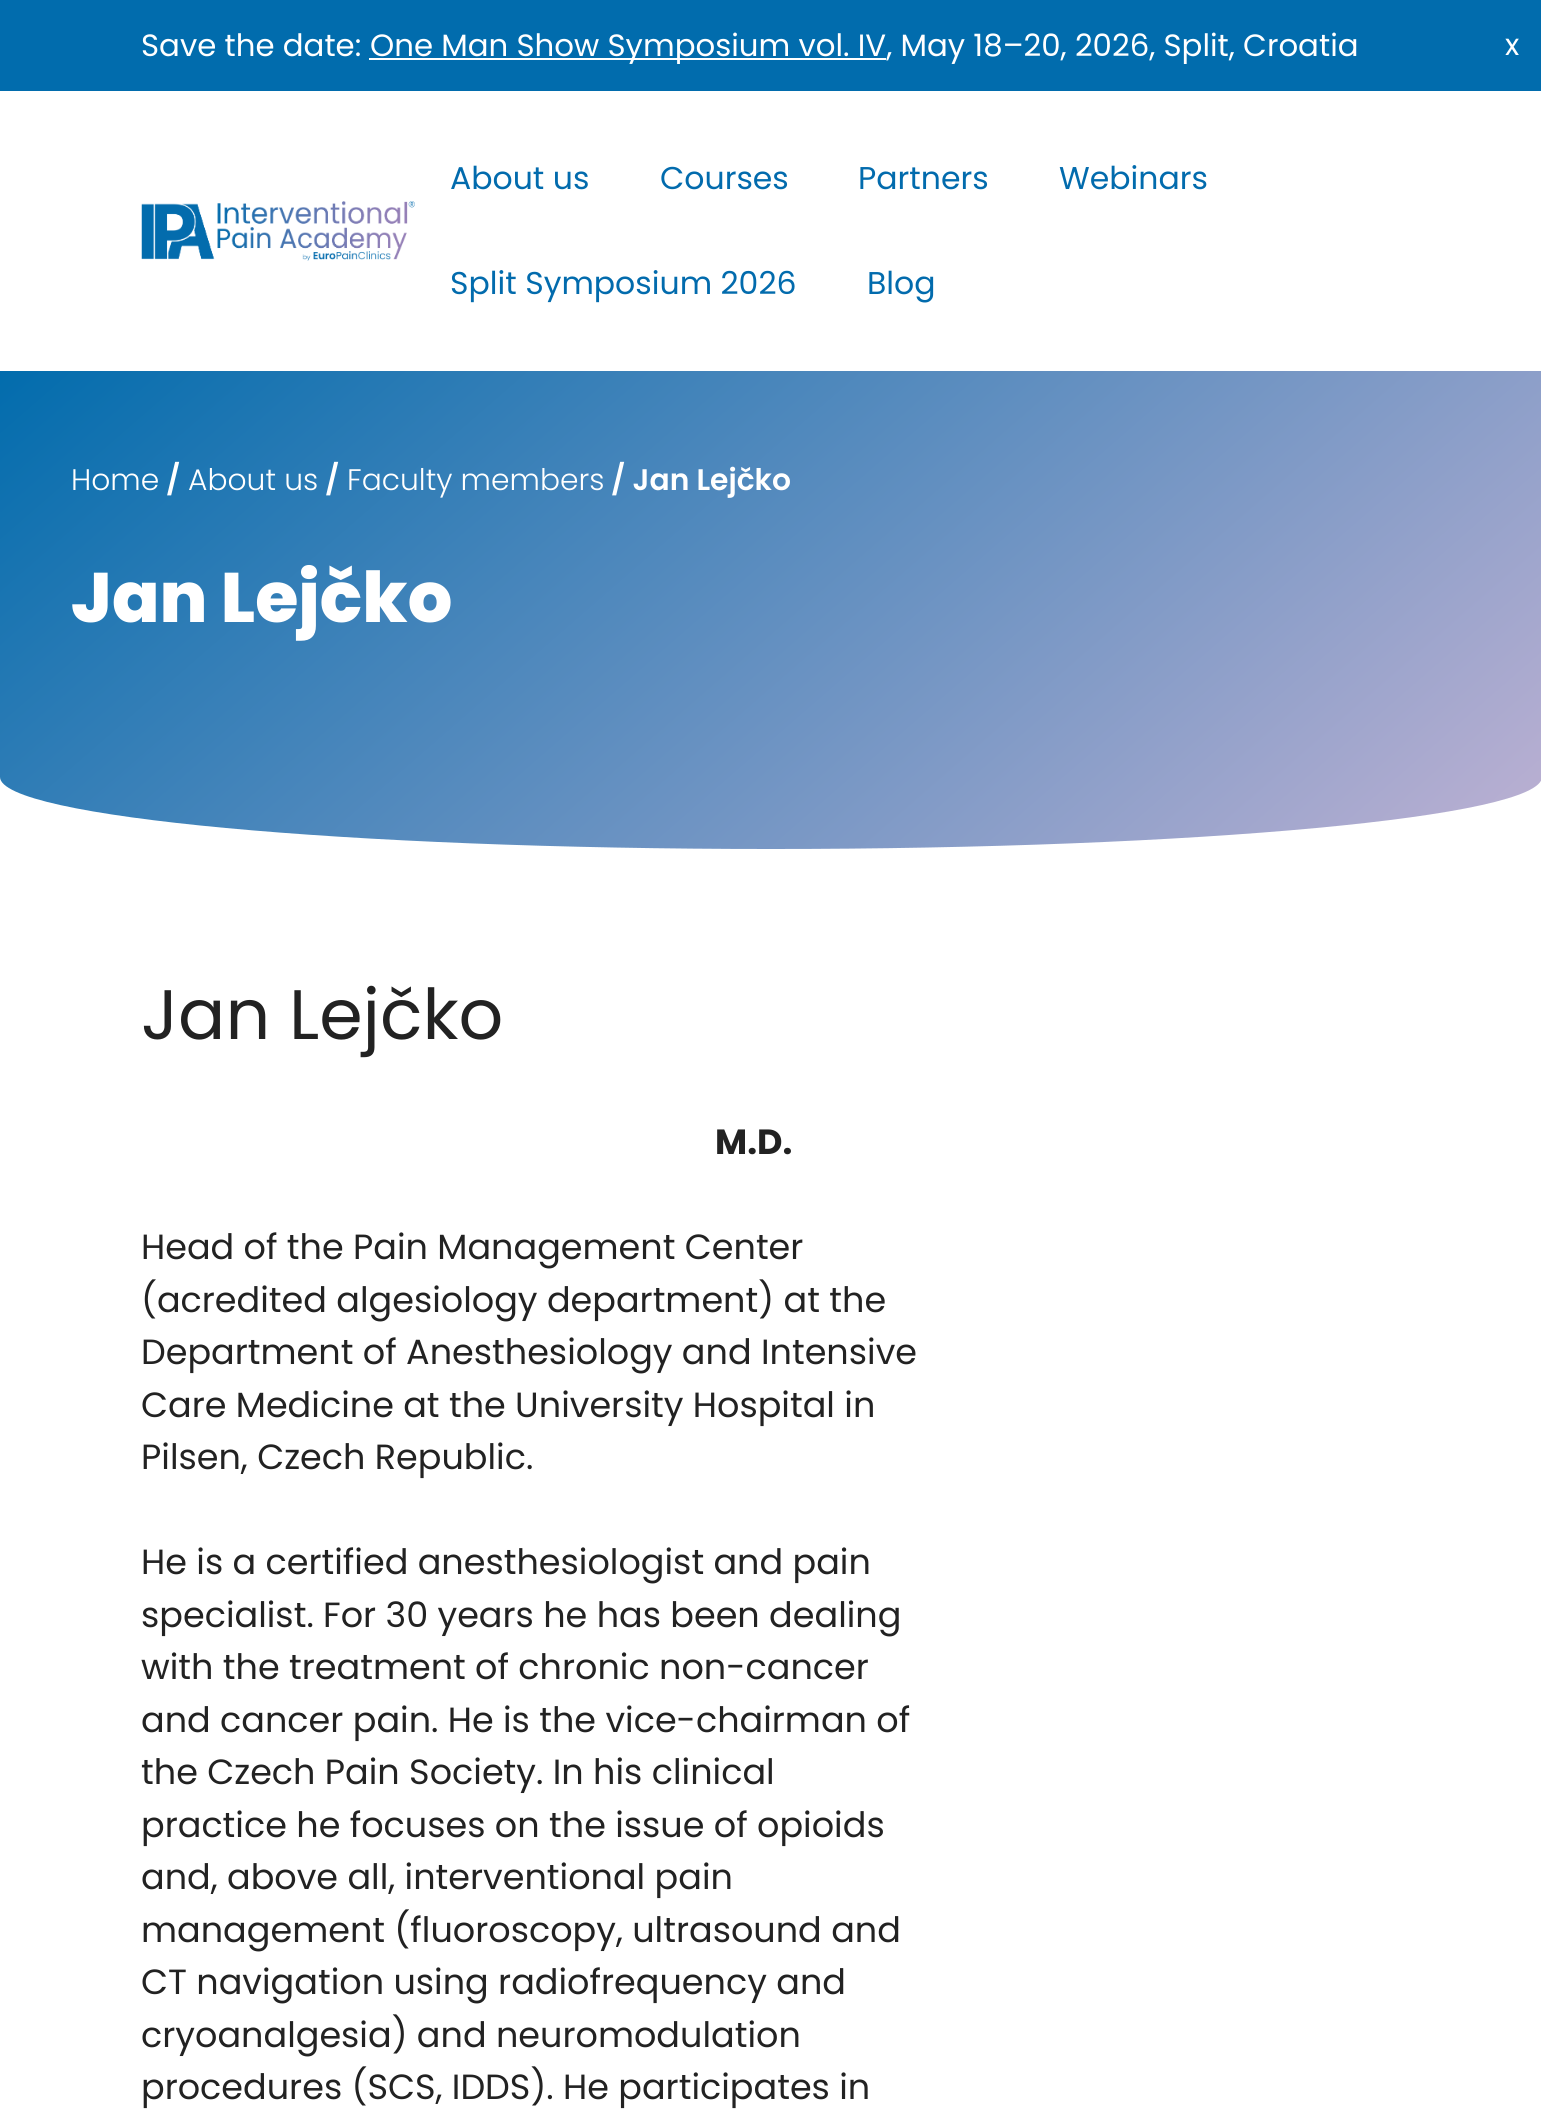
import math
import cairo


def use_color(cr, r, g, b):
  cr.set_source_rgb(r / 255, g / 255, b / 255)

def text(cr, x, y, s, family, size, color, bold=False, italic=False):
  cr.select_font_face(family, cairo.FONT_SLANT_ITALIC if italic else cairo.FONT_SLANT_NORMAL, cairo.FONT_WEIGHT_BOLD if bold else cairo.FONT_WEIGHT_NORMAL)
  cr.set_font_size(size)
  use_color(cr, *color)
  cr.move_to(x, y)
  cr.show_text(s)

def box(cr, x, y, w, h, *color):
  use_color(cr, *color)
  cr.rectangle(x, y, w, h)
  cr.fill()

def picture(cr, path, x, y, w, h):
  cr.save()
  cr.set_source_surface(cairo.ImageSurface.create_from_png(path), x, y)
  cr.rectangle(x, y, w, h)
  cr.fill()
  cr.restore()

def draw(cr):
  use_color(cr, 255, 255, 255)
  cr.paint()
  box(cr, 0, 0, 1541, 91, 1, 108, 173)
  box(cr, 369, 58, 517, 2, 255, 255, 255)
  picture(cr, "img_01.png", 141, 201, 274, 60)
  gradient = cairo.LinearGradient(321, 92, 1221, 1128)
  gradient.add_color_stop_rgba(0, 0.008, 0.424, 0.678, 1)
  gradient.add_color_stop_rgba(1, 0.745, 0.694, 0.827, 1)
  cr.set_source(gradient)
  cr.new_path()
  cr.move_to(0, 371)
  cr.line_to(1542, 371)
  cr.line_to(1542, 777)
  cr.curve_to(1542, 817, 1197, 849, 771, 849)
  cr.curve_to(345, 849, 0, 817, 0, 777)
  cr.close_path()
  cr.fill()
  text(cr, 141, 56, "Save the date:", "Poppins", 30.8, (255, 255, 255))
  text(cr, 370, 56, "One Man Show Symposium vol. IV, May 18–20, 2026, Split, Croatia", "Poppins", 30.8, (255, 255, 255))
  text(cr, 1505, 55, "x", "Poppins", 29.75, (255, 255, 255))
  text(cr, 450, 189, "About us", "Poppins", 31.5, (2, 107, 173))
  text(cr, 660, 189, "Courses", "Poppins", 31.5, (2, 107, 173))
  text(cr, 858, 189, "Partners", "Poppins", 31.5, (2, 107, 173))
  text(cr, 1059, 189, "Webinars", "Poppins", 31.5, (2, 107, 173))
  text(cr, 450, 294, "Split Symposium 2026", "Poppins", 31.5, (2, 107, 173))
  text(cr, 867, 294, "Blog", "Poppins", 31.5, (2, 107, 173))
  text(cr, 71, 490, "Home", "Poppins Light", 29.75, (255, 255, 255))
  text(cr, 166, 490, "/", "Poppins SemiBold", 29.75, (255, 255, 255))
  text(cr, 188, 490, "About us", "Poppins Light", 29.75, (255, 255, 255))
  text(cr, 325, 490, "/", "Poppins SemiBold", 29.75, (255, 255, 255))
  text(cr, 347, 490, "Faculty members", "Poppins Light", 29.75, (255, 255, 255))
  text(cr, 611, 490, "/ Jan Lejčko", "Poppins SemiBold", 29.75, (255, 255, 255))
  text(cr, 71, 622, "Jan Lejčko", "Poppins ExtraBold", 70, (255, 255, 255))
  text(cr, 141, 1039, "Jan Lejčko", "Poppins", 70, (34, 34, 34))
  text(cr, 715, 1154, "M.D.", "Poppins", 35, (34, 34, 34), bold=True)
  text(cr, 141, 1259, "Head of the Pain Management Center", "Poppins", 35, (34, 34, 34))
  text(cr, 141, 1312, "(acredited algesiology department) at the", "Poppins", 35, (34, 34, 34))
  text(cr, 141, 1364, "Department of Anesthesiology and Intensive", "Poppins", 35, (34, 34, 34))
  text(cr, 141, 1417, "Care Medicine at the University Hospital in", "Poppins", 35, (34, 34, 34))
  text(cr, 141, 1469, "Pilsen, Czech Republic.", "Poppins", 35, (34, 34, 34))
  text(cr, 141, 1574, "He is a certified anesthesiologist and pain", "Poppins", 35, (34, 34, 34))
  text(cr, 141, 1627, "specialist. For 30 years he has been dealing", "Poppins", 35, (34, 34, 34))
  text(cr, 141, 1679, "with the treatment of chronic non-cancer", "Poppins", 35, (34, 34, 34))
  text(cr, 141, 1732, "and cancer pain. He is the vice-chairman of", "Poppins", 35, (34, 34, 34))
  text(cr, 141, 1784, "the Czech Pain Society. In his clinical", "Poppins", 35, (34, 34, 34))
  text(cr, 141, 1837, "practice he focuses on the issue of opioids", "Poppins", 35, (34, 34, 34))
  text(cr, 141, 1889, "and, above all, interventional pain", "Poppins", 35, (34, 34, 34))
  text(cr, 141, 1942, "management (fluoroscopy, ultrasound and", "Poppins", 35, (34, 34, 34))
  text(cr, 141, 1994, "CT navigation using radiofrequency and", "Poppins", 35, (34, 34, 34))
  text(cr, 141, 2047, "cryoanalgesia) and neuromodulation", "Poppins", 35, (34, 34, 34))
  text(cr, 141, 2099, "procedures (SCS, IDDS). He participates in", "Poppins", 35, (34, 34, 34))


surface = cairo.ImageSurface(cairo.FORMAT_RGB24, 1541, 2114)
cr = cairo.Context(surface)
options = cairo.FontOptions()
options.set_hint_metrics(cairo.HINT_METRICS_OFF)
options.set_hint_style(cairo.HINT_STYLE_NONE)
cr.set_font_options(options)
cr.set_miter_limit(4)
draw(cr)
surface.write_to_png("out.png")
